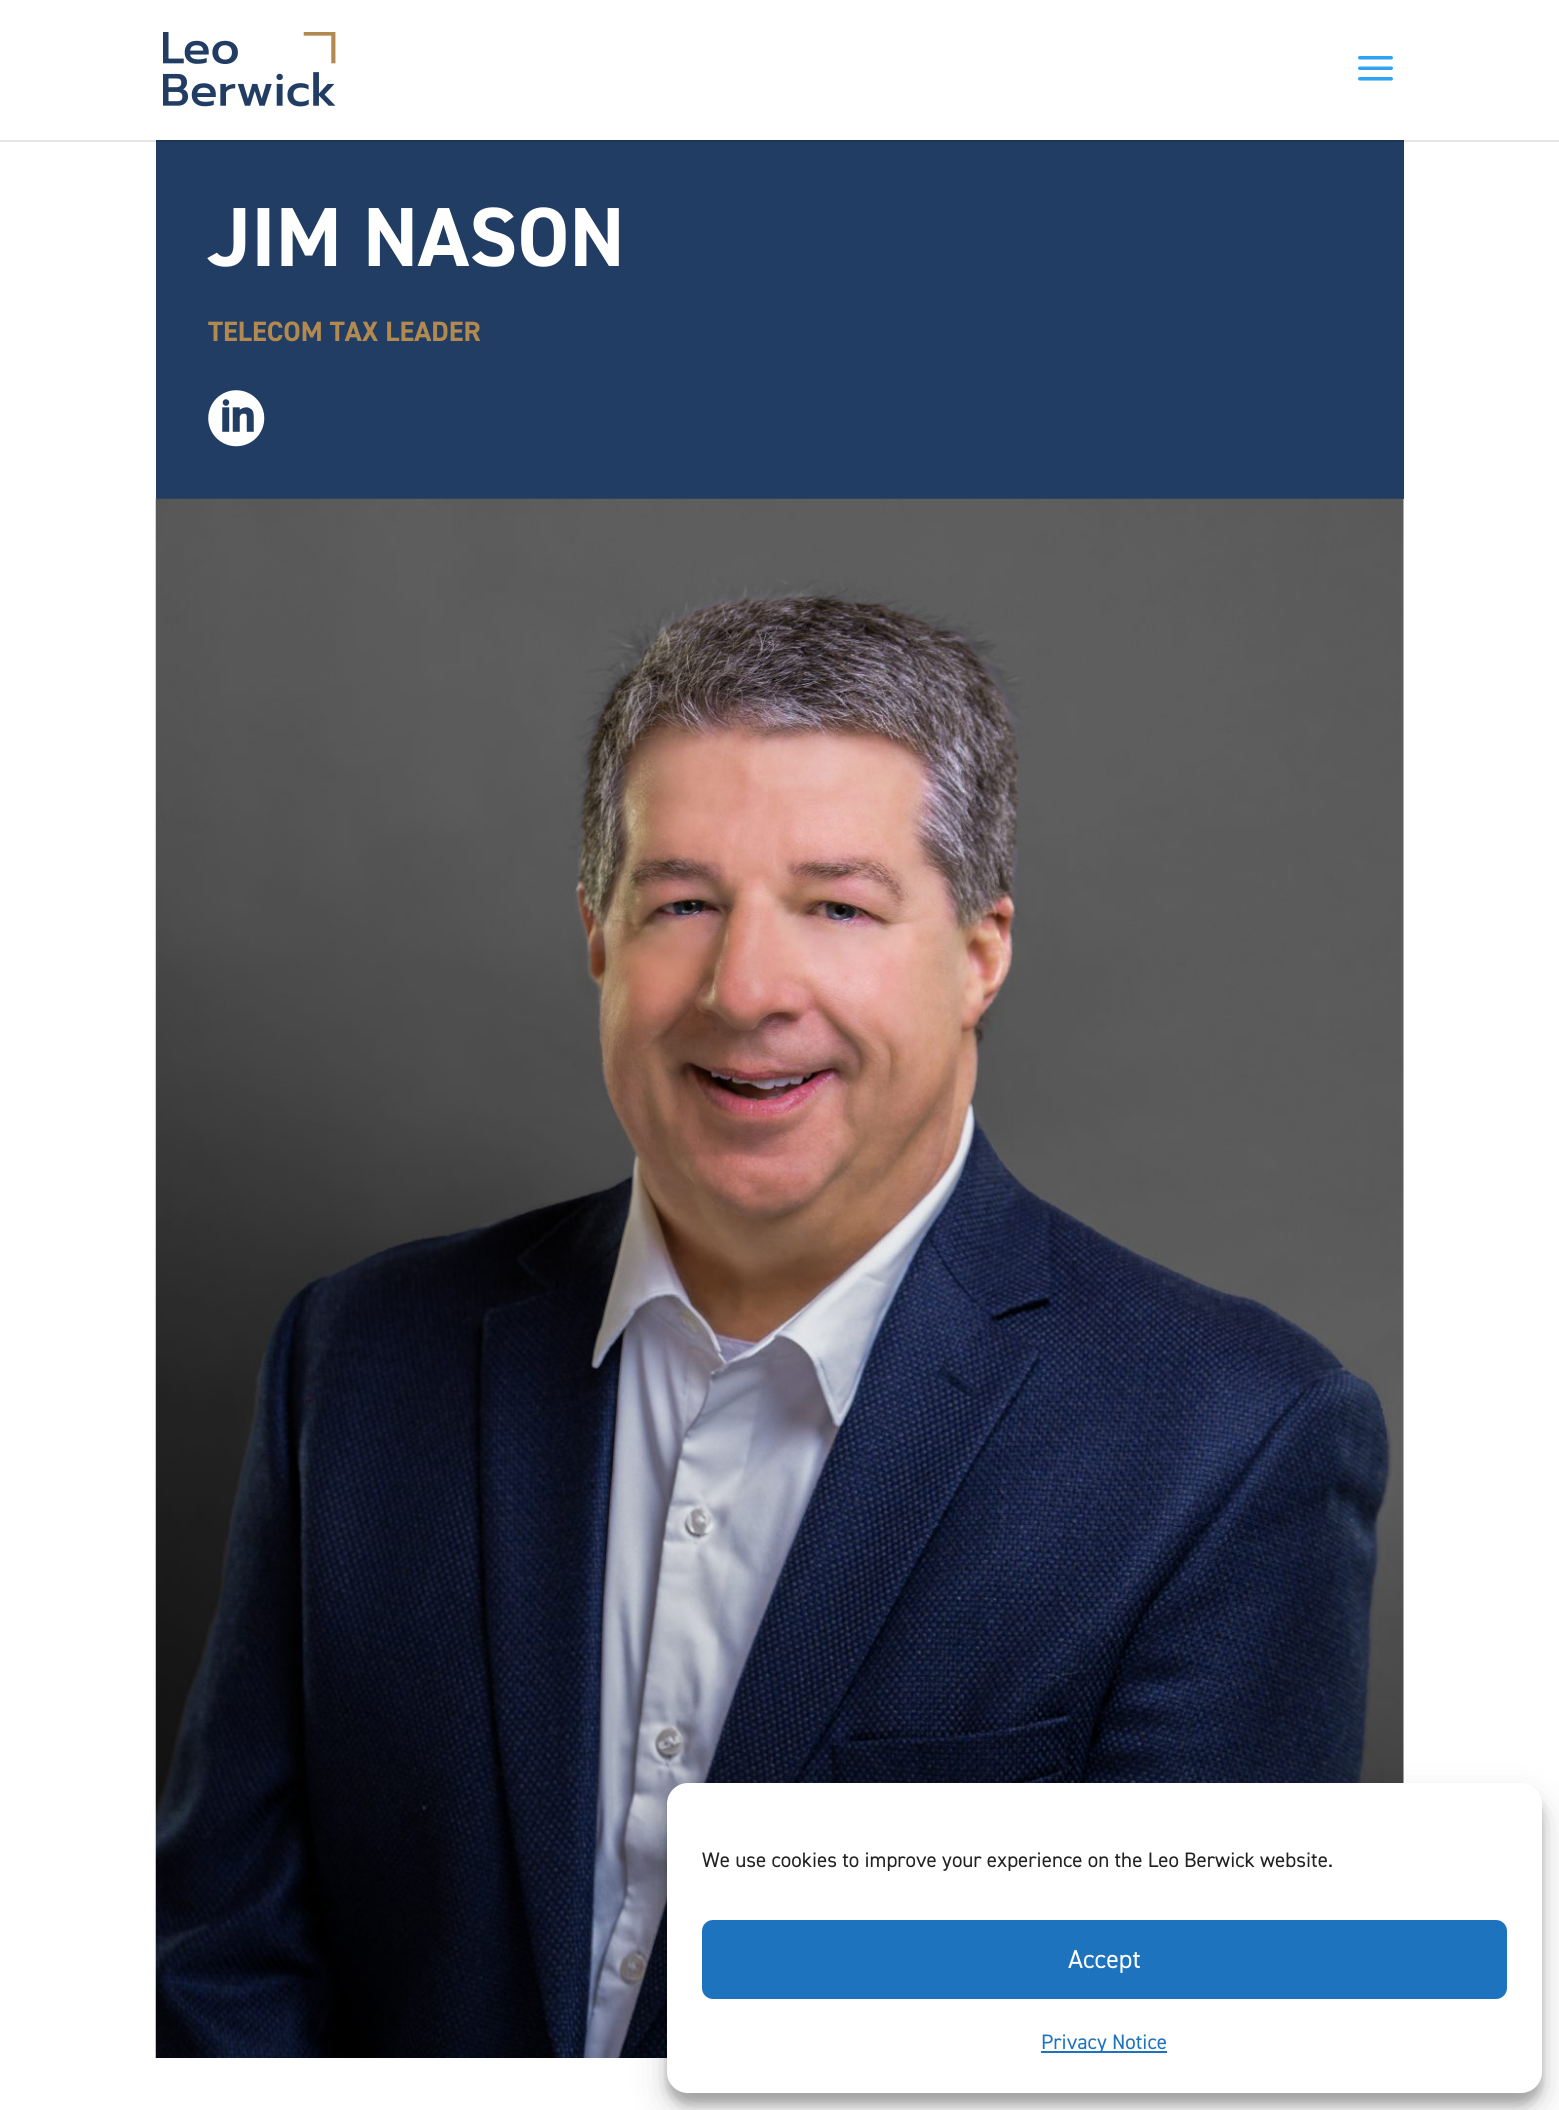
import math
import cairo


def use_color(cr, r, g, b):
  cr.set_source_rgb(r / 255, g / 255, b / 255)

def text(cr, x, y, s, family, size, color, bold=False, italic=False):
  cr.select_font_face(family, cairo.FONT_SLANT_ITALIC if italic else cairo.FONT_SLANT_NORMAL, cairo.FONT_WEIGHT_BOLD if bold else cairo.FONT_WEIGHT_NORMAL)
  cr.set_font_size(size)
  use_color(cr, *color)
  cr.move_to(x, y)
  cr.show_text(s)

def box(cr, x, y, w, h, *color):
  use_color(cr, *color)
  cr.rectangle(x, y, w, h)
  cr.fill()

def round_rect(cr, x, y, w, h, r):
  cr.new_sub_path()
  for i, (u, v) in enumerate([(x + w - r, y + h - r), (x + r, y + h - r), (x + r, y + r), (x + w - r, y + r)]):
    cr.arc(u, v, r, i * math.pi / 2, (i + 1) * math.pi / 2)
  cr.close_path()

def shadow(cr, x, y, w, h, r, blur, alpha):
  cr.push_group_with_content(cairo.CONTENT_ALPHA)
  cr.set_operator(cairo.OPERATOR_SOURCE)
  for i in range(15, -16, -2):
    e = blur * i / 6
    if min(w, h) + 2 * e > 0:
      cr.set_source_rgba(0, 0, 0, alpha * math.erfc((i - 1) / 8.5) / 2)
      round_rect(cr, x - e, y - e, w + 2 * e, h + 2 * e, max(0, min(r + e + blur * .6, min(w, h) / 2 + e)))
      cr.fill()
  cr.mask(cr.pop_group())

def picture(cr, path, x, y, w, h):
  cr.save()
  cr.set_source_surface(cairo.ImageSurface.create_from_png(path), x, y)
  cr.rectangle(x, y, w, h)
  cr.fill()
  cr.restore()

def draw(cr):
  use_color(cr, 255, 255, 255)
  cr.paint()
  box(cr, 0, 140, 1559, 2, 230, 230, 230)
  picture(cr, "img_01.png", 163, 32, 173, 75)
  picture(cr, "img_02.png", 1358, 56, 35, 25)
  box(cr, 156, 142, 1248, 357, 33, 61, 99)
  box(cr, 156, 140, 1248, 2, 30, 55, 89)
  picture(cr, "img_03.png", 208, 390, 57, 57)
  picture(cr, "img_04.png", 155, 498, 1249, 1560)
  use_color(cr, 0, 0, 0)
  shadow(cr, 667, 1794, 875, 310, 21, 5, 0.23)
  shadow(cr, 667, 1801, 875, 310, 21, 17.5, 0.19)
  use_color(cr, 255, 255, 255)
  round_rect(cr, 667, 1783, 875, 310, 21)
  cr.fill()
  use_color(cr, 30, 115, 190)
  round_rect(cr, 703, 1921, 803, 77, 10)
  cr.fill_preserve()
  cr.stroke()
  box(cr, 1041, 2051, 126, 2, 30, 115, 190)
  text(cr, 208, 266, "JIM NASON", "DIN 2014", 84, (255, 255, 255), bold=True)
  text(cr, 208, 341, "TELECOM TAX LEADER", "DIN 2014", 28, (178, 138, 79), bold=True)
  text(cr, 702, 1867, "We use cookies to improve your experience on the Leo Berwick website.", "DIN 2014", 21, (34, 34, 34))
  text(cr, 1068, 1968, "Accept", "DIN 2014", 26, (255, 255, 255))
  text(cr, 1041, 2049, "Privacy Notice", "DIN 2014", 21, (30, 115, 190))


surface = cairo.ImageSurface(cairo.FORMAT_RGB24, 1559, 2110)
cr = cairo.Context(surface)
options = cairo.FontOptions()
options.set_hint_metrics(cairo.HINT_METRICS_OFF)
options.set_hint_style(cairo.HINT_STYLE_NONE)
cr.set_font_options(options)
cr.set_miter_limit(4)
draw(cr)
surface.write_to_png("out.png")
